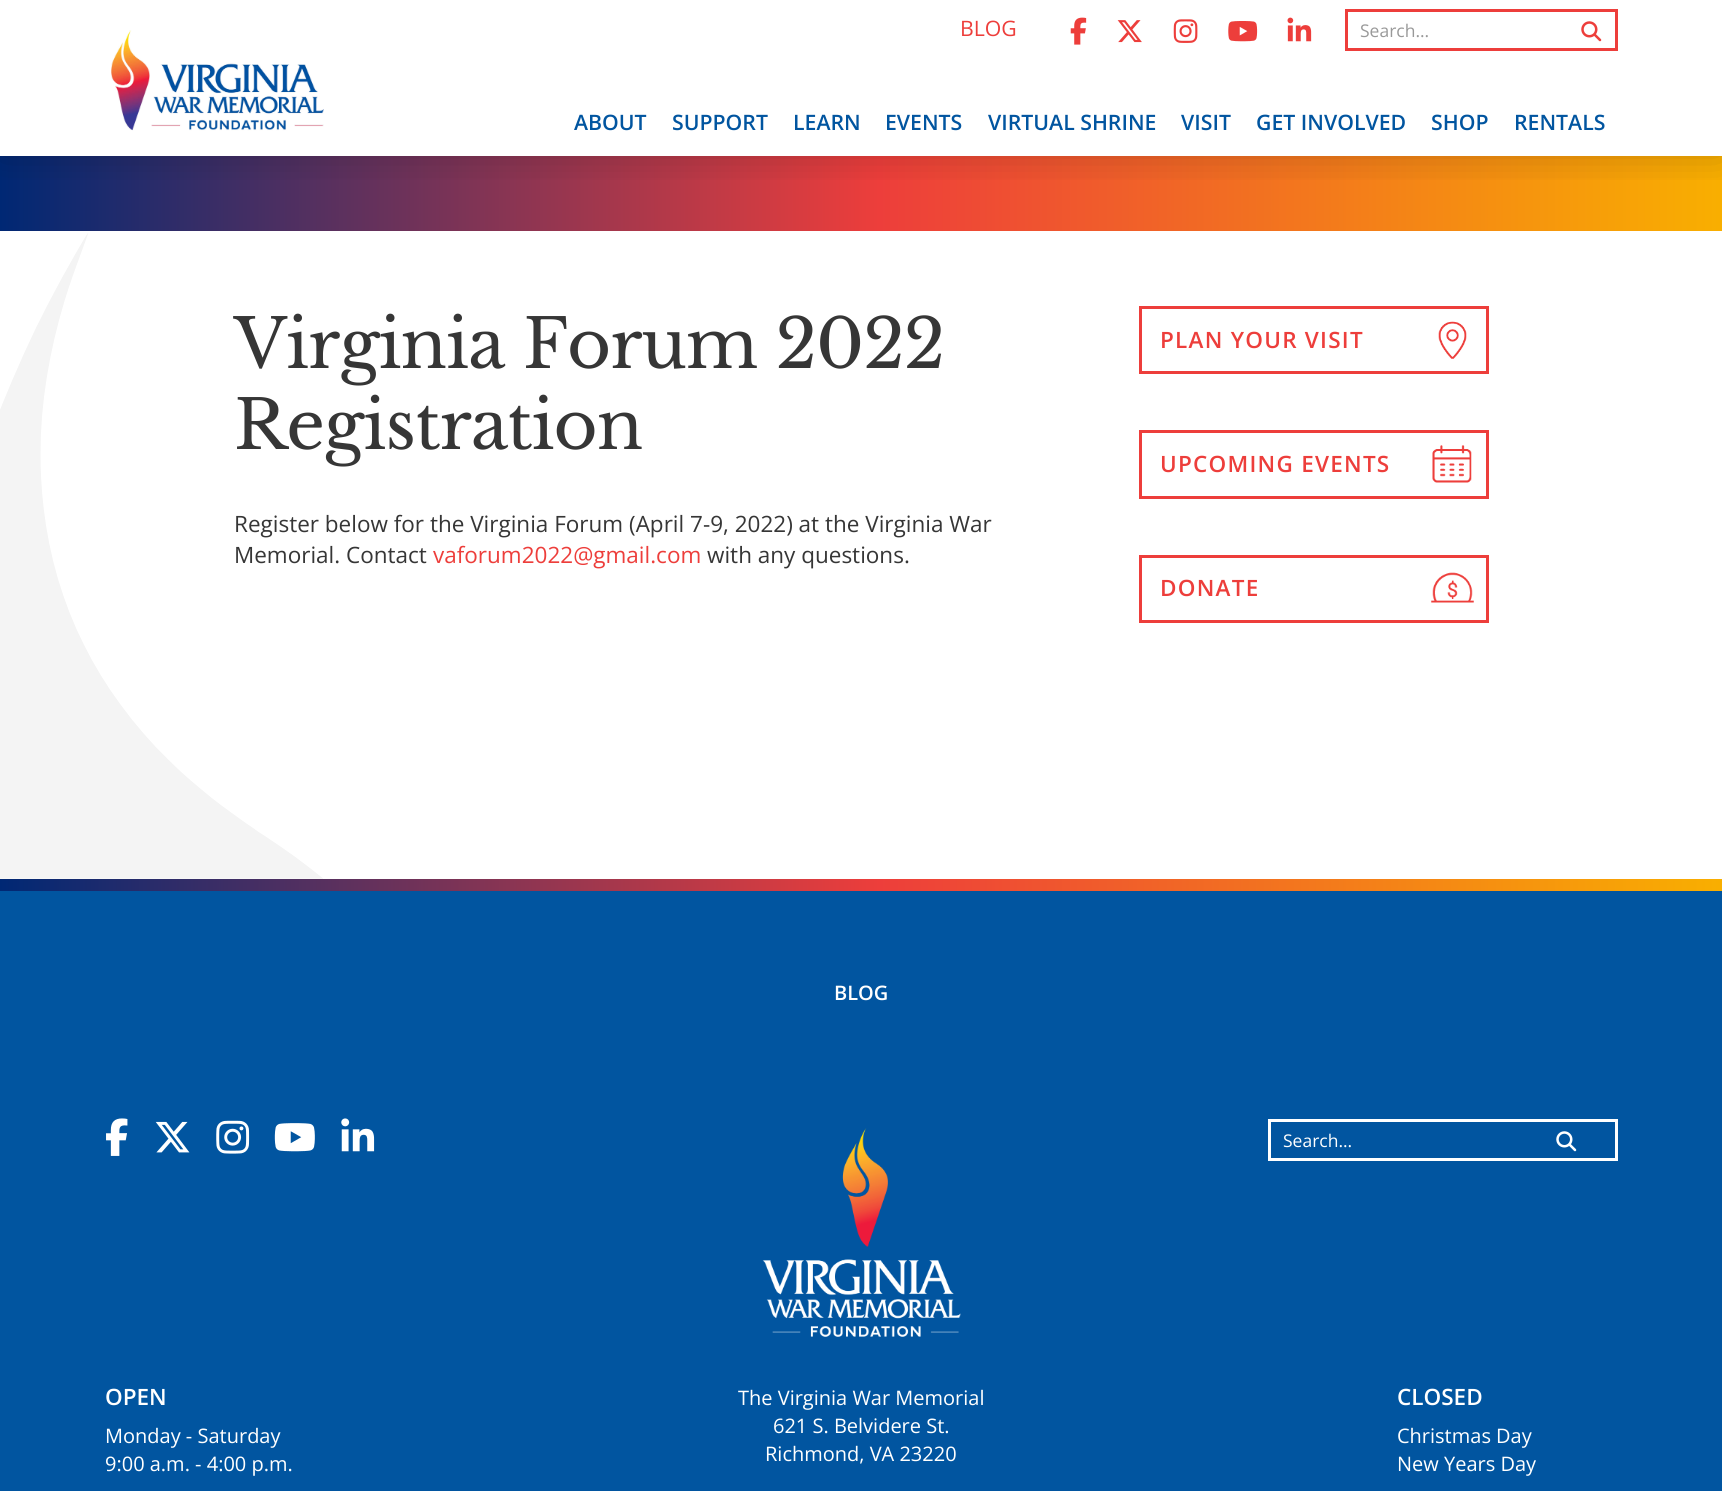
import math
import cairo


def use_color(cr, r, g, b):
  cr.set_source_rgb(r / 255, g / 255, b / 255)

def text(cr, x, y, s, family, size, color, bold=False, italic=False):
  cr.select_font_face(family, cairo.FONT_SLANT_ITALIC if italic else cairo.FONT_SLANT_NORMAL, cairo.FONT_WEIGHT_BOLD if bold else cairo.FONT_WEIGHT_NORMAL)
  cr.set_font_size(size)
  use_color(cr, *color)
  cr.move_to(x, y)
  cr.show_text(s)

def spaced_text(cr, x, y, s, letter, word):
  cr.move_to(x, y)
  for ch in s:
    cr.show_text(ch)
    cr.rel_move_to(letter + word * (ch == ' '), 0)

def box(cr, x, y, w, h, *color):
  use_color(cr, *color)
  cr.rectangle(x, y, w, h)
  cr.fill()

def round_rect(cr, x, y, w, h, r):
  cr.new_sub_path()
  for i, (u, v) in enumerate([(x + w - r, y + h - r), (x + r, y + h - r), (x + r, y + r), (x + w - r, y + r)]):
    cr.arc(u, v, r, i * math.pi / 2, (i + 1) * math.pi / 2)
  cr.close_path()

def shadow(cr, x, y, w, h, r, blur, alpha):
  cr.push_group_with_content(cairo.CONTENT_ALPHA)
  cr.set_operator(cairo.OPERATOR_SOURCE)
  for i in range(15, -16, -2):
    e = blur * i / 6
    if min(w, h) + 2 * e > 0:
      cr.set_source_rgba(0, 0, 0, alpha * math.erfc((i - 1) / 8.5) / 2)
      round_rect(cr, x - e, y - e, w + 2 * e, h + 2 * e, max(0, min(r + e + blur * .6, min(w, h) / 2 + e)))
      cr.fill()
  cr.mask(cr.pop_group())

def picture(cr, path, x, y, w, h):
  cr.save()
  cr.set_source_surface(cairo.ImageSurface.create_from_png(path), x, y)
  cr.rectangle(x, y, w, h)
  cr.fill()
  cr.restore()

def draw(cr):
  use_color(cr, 255, 255, 255)
  cr.paint()
  gradient = cairo.LinearGradient(0, 194, 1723, 194)
  gradient.add_color_stop_rgba(0, 0, 0.157, 0.455, 1)
  gradient.add_color_stop_rgba(0.51, 0.929, 0.243, 0.231, 1)
  gradient.add_color_stop_rgba(1, 0.976, 0.686, 0, 1)
  cr.set_source(gradient)
  cr.rectangle(0, 156, 1722, 75)
  cr.fill()
  cr.save()
  cr.rectangle(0, 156, 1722, 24)
  cr.clip()
  use_color(cr, 0, 0, 0)
  shadow(cr, 0, 0, 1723, 156, 0, 19, 0.2)
  cr.restore()
  picture(cr, "img_01.png", 111, 30, 213, 101)
  picture(cr, "img_02.png", 1070, 17, 17, 28)
  picture(cr, "img_03.png", 1117, 20, 25, 23)
  picture(cr, "img_04.png", 1173, 19, 25, 24)
  picture(cr, "img_05.png", 1228, 21, 30, 21)
  picture(cr, "img_06.png", 1287, 17, 25, 25)
  cr.rectangle(1346.5, 10.5, 270, 39)
  use_color(cr, 237, 62, 59)
  cr.set_line_width(3)
  cr.stroke()
  picture(cr, "img_07.png", 1581, 21, 21, 21)
  picture(cr, "img_08.png", 0, 233, 323, 646)
  cr.rectangle(1140.5, 307.5, 347, 65)
  cr.stroke()
  picture(cr, "img_09.png", 1438, 321, 29, 38)
  cr.rectangle(1140.5, 431.5, 347, 66)
  cr.stroke()
  picture(cr, "img_10.png", 1432, 445, 40, 38)
  cr.rectangle(1140.5, 556.5, 347, 65)
  cr.stroke()
  picture(cr, "img_11.png", 1431, 572, 43, 31)
  box(cr, 0, 891, 1722, 600, 1, 85, 160)
  gradient = cairo.LinearGradient(0, 885, 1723, 885)
  gradient.add_color_stop_rgba(0, 0, 0.157, 0.455, 1)
  gradient.add_color_stop_rgba(0.51, 0.929, 0.243, 0.231, 1)
  gradient.add_color_stop_rgba(1, 0.976, 0.686, 0, 1)
  cr.set_source(gradient)
  cr.rectangle(0, 879, 1722, 12)
  cr.fill()
  picture(cr, "img_12.png", 106, 1118, 22, 38)
  picture(cr, "img_13.png", 155, 1121, 35, 32)
  picture(cr, "img_14.png", 216, 1120, 34, 34)
  picture(cr, "img_15.png", 274, 1123, 41, 29)
  picture(cr, "img_16.png", 341, 1118, 34, 34)
  picture(cr, "img_17.png", 762, 1128, 199, 209)
  cr.rectangle(1269.5, 1120.5, 347, 39)
  use_color(cr, 255, 255, 255)
  cr.stroke()
  picture(cr, "img_18.png", 1556, 1131, 21, 21)
  text(cr, 960, 36, "BLOG", "Open Sans", 21.25, (237, 62, 59))
  text(cr, 1360, 37, "Search...", "Open Sans", 17.5, (153, 153, 153))
  text(cr, 574, 130, "ABOUT", "Open Sans SemiBold", 21.25, (1, 85, 160))
  text(cr, 672, 130, "SUPPORT", "Open Sans SemiBold", 21.25, (1, 85, 160))
  text(cr, 793, 130, "LEARN", "Open Sans SemiBold", 21.25, (1, 85, 160))
  text(cr, 885, 130, "EVENTS", "Open Sans SemiBold", 21.25, (1, 85, 160))
  text(cr, 988, 130, "VIRTUAL SHRINE", "Open Sans SemiBold", 21.25, (1, 85, 160))
  text(cr, 1181, 130, "VISIT", "Open Sans SemiBold", 21.25, (1, 85, 160))
  text(cr, 1256, 130, "GET INVOLVED", "Open Sans SemiBold", 21.25, (1, 85, 160))
  text(cr, 1431, 130, "SHOP", "Open Sans SemiBold", 21.25, (1, 85, 160))
  text(cr, 1514, 130, "RENTALS", "Open Sans SemiBold", 21.25, (1, 85, 160))
  cr.select_font_face("Libre Baskerville")
  cr.set_font_size(67.5)
  use_color(cr, 54, 54, 54)
  spaced_text(cr, 234, 368, "Virginia Forum 2022", -1, 0)
  spaced_text(cr, 234, 449, "Registration", -1, 0)
  text(cr, 234, 532, "Register below for the Virginia Forum (April 7-9, 2022) at the Virginia War", "Open Sans", 22.5, (54, 54, 54))
  text(cr, 234, 563, "Memorial. Contact", "Open Sans", 22.5, (54, 54, 54))
  text(cr, 433, 563, "vaforum2022@gmail.com", "Open Sans", 22.5, (237, 62, 59))
  text(cr, 707, 563, "with any questions.", "Open Sans", 22.5, (54, 54, 54))
  cr.select_font_face("Open Sans SemiBold")
  use_color(cr, 237, 62, 59)
  spaced_text(cr, 1160, 348, "PLAN YOUR VISIT", 1.25, 0)
  spaced_text(cr, 1160, 472, "UPCOMING EVENTS", 1.25, 0)
  spaced_text(cr, 1160, 596, "DONATE", 1.25, 0)
  text(cr, 834, 1000, "BLOG", "Open Sans SemiBold", 20, (255, 255, 255))
  text(cr, 1283, 1147, "Search...", "Open Sans", 17.5, (255, 255, 255))
  text(cr, 105, 1405, "OPEN", "Open Sans SemiBold", 22.5, (255, 255, 255))
  text(cr, 105, 1443, "Monday - Saturday", "Open Sans", 20, (255, 255, 255))
  text(cr, 105, 1471, "9:00 a.m. - 4:00 p.m.", "Open Sans", 20, (255, 255, 255))
  text(cr, 738, 1405, "The Virginia War Memorial", "Open Sans", 20, (255, 255, 255))
  text(cr, 773, 1433, "621 S. Belvidere St.", "Open Sans", 20, (255, 255, 255))
  text(cr, 765, 1461, "Richmond, VA 23220", "Open Sans", 20, (255, 255, 255))
  text(cr, 1397, 1405, "CLOSED", "Open Sans SemiBold", 22.5, (255, 255, 255))
  text(cr, 1397, 1443, "Christmas Day", "Open Sans", 20, (255, 255, 255))
  text(cr, 1397, 1471, "New Years Day", "Open Sans", 20, (255, 255, 255))


surface = cairo.ImageSurface(cairo.FORMAT_RGB24, 1722, 1491)
cr = cairo.Context(surface)
options = cairo.FontOptions()
options.set_hint_metrics(cairo.HINT_METRICS_OFF)
options.set_hint_style(cairo.HINT_STYLE_NONE)
cr.set_font_options(options)
cr.set_miter_limit(4)
draw(cr)
surface.write_to_png("out.png")
